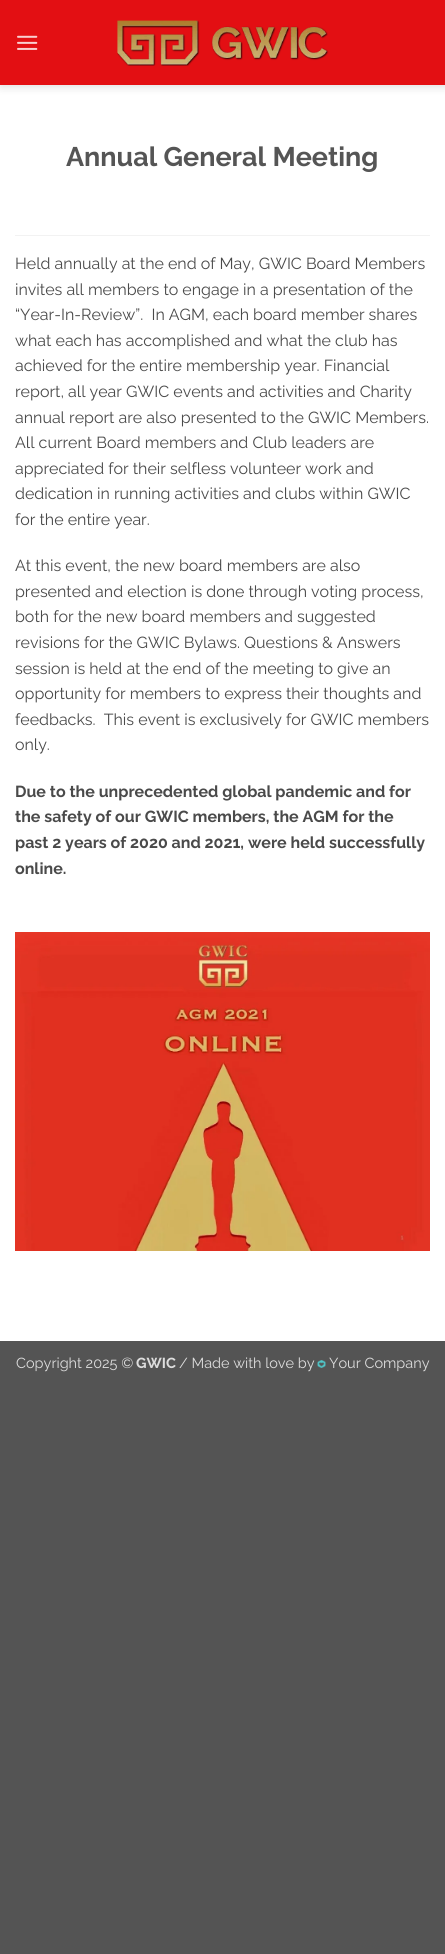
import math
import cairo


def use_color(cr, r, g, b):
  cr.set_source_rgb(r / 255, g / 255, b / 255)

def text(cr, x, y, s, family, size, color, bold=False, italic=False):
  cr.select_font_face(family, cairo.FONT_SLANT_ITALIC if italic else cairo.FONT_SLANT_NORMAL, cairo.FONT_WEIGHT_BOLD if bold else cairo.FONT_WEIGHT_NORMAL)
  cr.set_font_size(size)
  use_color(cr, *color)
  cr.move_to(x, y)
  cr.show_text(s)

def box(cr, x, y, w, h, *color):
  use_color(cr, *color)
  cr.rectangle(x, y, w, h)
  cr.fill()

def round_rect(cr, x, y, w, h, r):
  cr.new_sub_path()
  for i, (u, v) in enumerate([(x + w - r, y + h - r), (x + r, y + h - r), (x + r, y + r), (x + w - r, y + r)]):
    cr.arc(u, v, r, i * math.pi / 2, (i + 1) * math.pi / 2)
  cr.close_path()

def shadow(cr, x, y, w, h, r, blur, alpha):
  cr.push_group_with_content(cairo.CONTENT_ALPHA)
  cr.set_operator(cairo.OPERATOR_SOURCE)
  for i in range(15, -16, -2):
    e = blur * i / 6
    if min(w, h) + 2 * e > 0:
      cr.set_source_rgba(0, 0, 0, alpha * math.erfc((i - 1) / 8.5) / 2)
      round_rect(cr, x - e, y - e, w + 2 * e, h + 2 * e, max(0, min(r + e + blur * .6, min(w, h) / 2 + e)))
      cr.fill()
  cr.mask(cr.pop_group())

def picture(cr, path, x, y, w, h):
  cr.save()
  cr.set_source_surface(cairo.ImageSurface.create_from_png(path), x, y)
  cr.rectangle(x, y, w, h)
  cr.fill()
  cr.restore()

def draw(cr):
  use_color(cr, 84, 84, 84)
  cr.paint()
  box(cr, 0, 85, 445, 1256, 255, 255, 255)
  use_color(cr, 0, 0, 0)
  shadow(cr, 1, 1, 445, 85, 0, 5, 0.15)
  box(cr, 0, 0, 445, 85, 227, 15, 19)
  picture(cr, "img_01.png", 17, 35, 21, 15)
  picture(cr, "img_02.png", 117, 20, 212, 46)
  box(cr, 15, 235, 415, 1, 242, 242, 242)
  picture(cr, "img_03.png", 15, 932, 415, 319)
  picture(cr, "img_04.png", 317, 1360, 9, 8)
  text(cr, 66, 166, "Annual General Meeting", "Raleway", 26.9, (85, 85, 85), bold=True)
  text(cr, 15, 269, "Held annually at the end of May, GWIC Board Members", "Raleway", 16, (74, 74, 74))
  text(cr, 15, 295, "invites all members to engage in a presentation of the", "Raleway", 16, (74, 74, 74))
  text(cr, 15, 320, "“Year-In-Review”.  In AGM, each board member shares", "Raleway", 16, (74, 74, 74))
  text(cr, 15, 346, "what each has accomplished and what the club has", "Raleway", 16, (74, 74, 74))
  text(cr, 15, 371, "achieved for the entire membership year. Financial", "Raleway", 16, (74, 74, 74))
  text(cr, 15, 397, "report, all year GWIC events and activities and Charity", "Raleway", 16, (74, 74, 74))
  text(cr, 15, 423, "annual report are also presented to the GWIC Members.", "Raleway", 16, (74, 74, 74))
  text(cr, 15, 448, "All current Board members and Club leaders are", "Raleway", 16, (74, 74, 74))
  text(cr, 15, 474, "appreciated for their selfless volunteer work and", "Raleway", 16, (74, 74, 74))
  text(cr, 15, 499, "dedication in running activities and clubs within GWIC", "Raleway", 16, (74, 74, 74))
  text(cr, 15, 525, "for the entire year.", "Raleway", 16, (74, 74, 74))
  text(cr, 15, 571, "At this event, the new board members are also", "Raleway", 16, (74, 74, 74))
  text(cr, 15, 597, "presented and election is done through voting process,", "Raleway", 16, (74, 74, 74))
  text(cr, 15, 622, "both for the new board members and suggested", "Raleway", 16, (74, 74, 74))
  text(cr, 15, 648, "revisions for the GWIC Bylaws. Questions & Answers", "Raleway", 16, (74, 74, 74))
  text(cr, 15, 674, "session is held at the end of the meeting to give an", "Raleway", 16, (74, 74, 74))
  text(cr, 15, 699, "opportunity for members to express their thoughts and", "Raleway", 16, (74, 74, 74))
  text(cr, 15, 725, "feedbacks.  This event is exclusively for GWIC members", "Raleway", 16, (74, 74, 74))
  text(cr, 15, 750, "only.", "Raleway", 16, (74, 74, 74))
  text(cr, 15, 797, "Due to the unprecedented global pandemic and for", "Raleway", 16, (74, 74, 74), bold=True)
  text(cr, 15, 822, "the safety of our GWIC members, the AGM for the", "Raleway", 16, (74, 74, 74), bold=True)
  text(cr, 15, 848, "past 2 years of 2020 and 2021, were held successfully", "Raleway", 16, (74, 74, 74), bold=True)
  text(cr, 15, 874, "online.", "Raleway", 16, (74, 74, 74), bold=True)
  text(cr, 16, 1368, "Copyright 2025 ©", "Raleway", 14.5, (221, 221, 221))
  text(cr, 136, 1368, "GWIC", "Raleway", 14.5, (221, 221, 221), bold=True)
  text(cr, 179, 1368, "/ Made with love by", "Raleway", 14.5, (221, 221, 221))
  text(cr, 329, 1368, "Your Company", "Raleway", 14.5, (221, 221, 221))


surface = cairo.ImageSurface(cairo.FORMAT_RGB24, 445, 1954)
cr = cairo.Context(surface)
options = cairo.FontOptions()
options.set_hint_metrics(cairo.HINT_METRICS_OFF)
options.set_hint_style(cairo.HINT_STYLE_NONE)
cr.set_font_options(options)
cr.set_miter_limit(4)
draw(cr)
surface.write_to_png("out.png")
